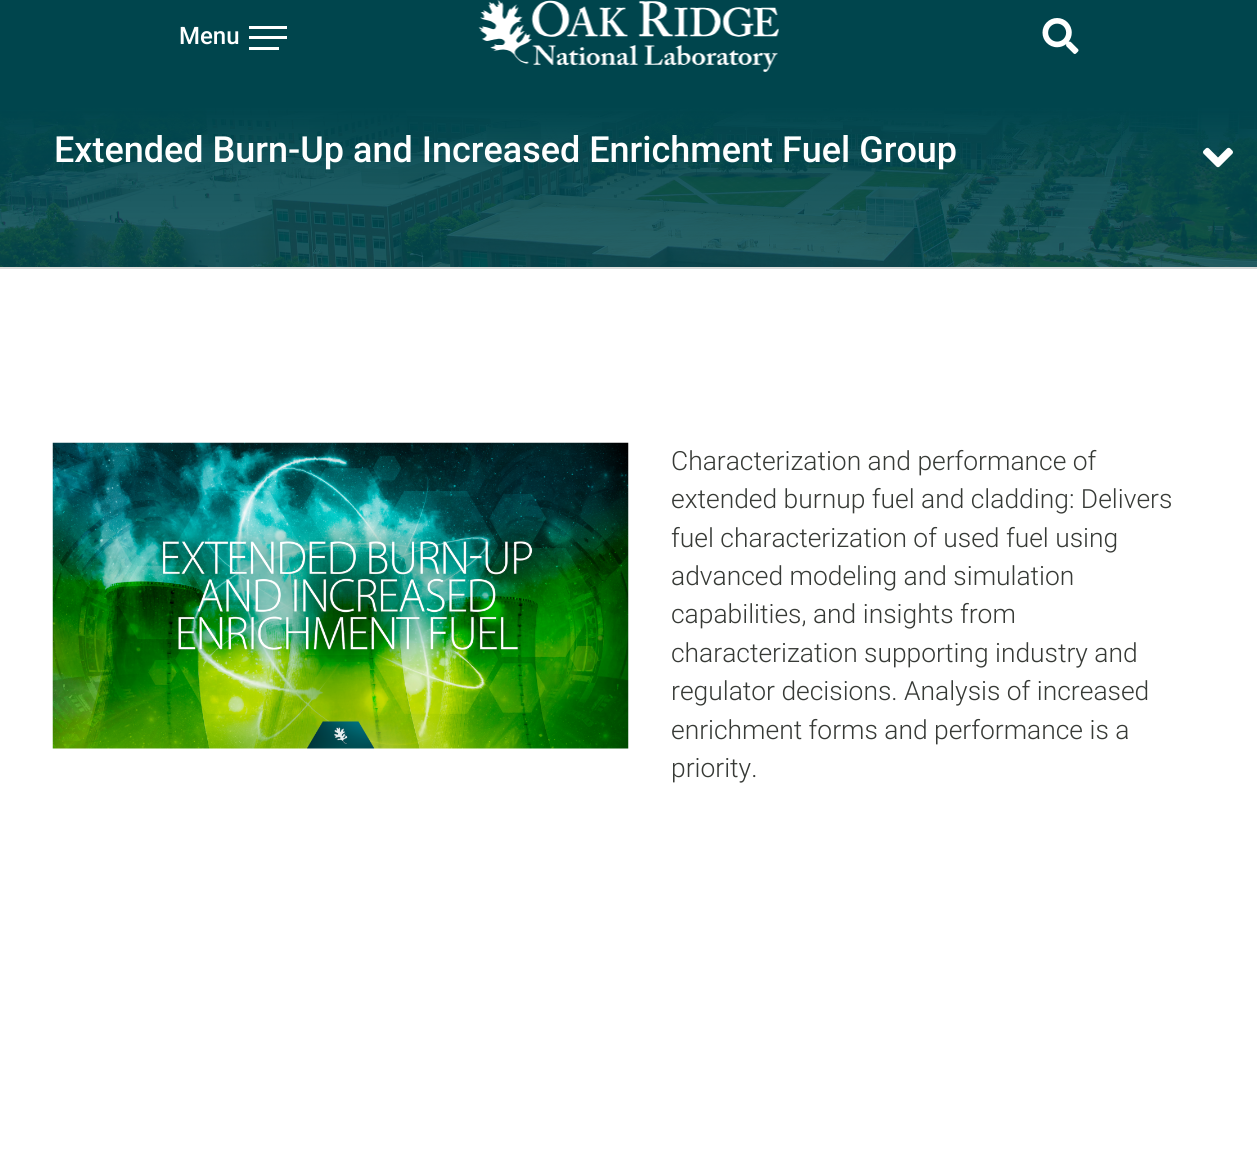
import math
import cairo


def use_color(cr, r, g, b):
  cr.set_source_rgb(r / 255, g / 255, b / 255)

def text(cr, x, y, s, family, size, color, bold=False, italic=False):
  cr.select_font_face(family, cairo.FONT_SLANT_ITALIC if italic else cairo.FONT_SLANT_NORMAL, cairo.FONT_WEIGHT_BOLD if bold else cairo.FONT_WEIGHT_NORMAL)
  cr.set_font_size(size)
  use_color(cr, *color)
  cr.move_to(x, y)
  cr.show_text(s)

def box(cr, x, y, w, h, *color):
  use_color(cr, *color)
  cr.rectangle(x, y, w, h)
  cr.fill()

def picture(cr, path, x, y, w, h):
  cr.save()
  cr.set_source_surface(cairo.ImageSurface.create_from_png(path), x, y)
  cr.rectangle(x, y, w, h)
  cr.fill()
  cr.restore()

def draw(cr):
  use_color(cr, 255, 255, 255)
  cr.paint()
  picture(cr, "img_01.png", 0, 0, 1257, 267)
  box(cr, 249, 26, 38, 3, 255, 255, 255)
  box(cr, 249, 36, 38, 3, 255, 255, 255)
  box(cr, 249, 47, 30, 3, 255, 255, 255)
  picture(cr, "img_02.png", 478, 0, 301, 72)
  picture(cr, "img_03.png", 1042, 18, 37, 36)
  picture(cr, "img_04.png", 1203, 147, 30, 21)
  box(cr, 0, 267, 1257, 2, 219, 220, 219)
  picture(cr, "img_05.png", 52, 442, 577, 307)
  text(cr, 179, 44, "Menu", "Roboto Medium", 24, (255, 255, 255))
  text(cr, 54, 162, "Extended Burn-Up and Increased Enrichment Fuel Group", "Roboto Medium", 36, (255, 255, 255))
  text(cr, 671, 470, "Characterization and performance of", "Roboto Light", 26.4, (55, 58, 54))
  text(cr, 671, 508, "extended burnup fuel and cladding: Delivers", "Roboto Light", 26.4, (55, 58, 54))
  text(cr, 671, 547, "fuel characterization of used fuel using", "Roboto Light", 26.4, (55, 58, 54))
  text(cr, 671, 585, "advanced modeling and simulation", "Roboto Light", 26.4, (55, 58, 54))
  text(cr, 671, 623, "capabilities, and insights from", "Roboto Light", 26.4, (55, 58, 54))
  text(cr, 671, 662, "characterization supporting industry and", "Roboto Light", 26.4, (55, 58, 54))
  text(cr, 671, 700, "regulator decisions. Analysis of increased", "Roboto Light", 26.4, (55, 58, 54))
  text(cr, 671, 739, "enrichment forms and performance is a", "Roboto Light", 26.4, (55, 58, 54))
  text(cr, 671, 777, "priority.", "Roboto Light", 26.4, (55, 58, 54))


surface = cairo.ImageSurface(cairo.FORMAT_RGB24, 1257, 1165)
cr = cairo.Context(surface)
options = cairo.FontOptions()
options.set_hint_metrics(cairo.HINT_METRICS_OFF)
options.set_hint_style(cairo.HINT_STYLE_NONE)
cr.set_font_options(options)
cr.set_miter_limit(4)
draw(cr)
surface.write_to_png("out.png")
